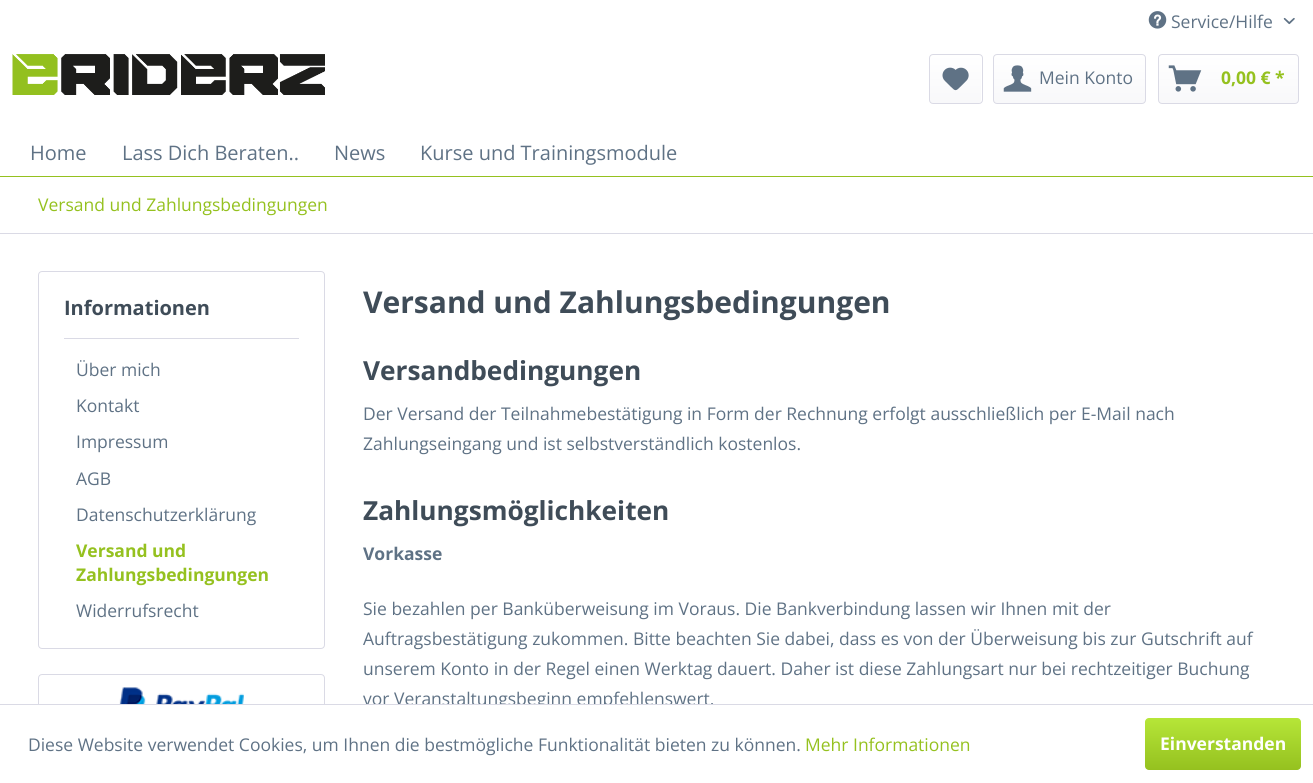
import math
import cairo


def use_color(cr, r, g, b):
  cr.set_source_rgb(r / 255, g / 255, b / 255)

def text(cr, x, y, s, family, size, color, bold=False, italic=False):
  cr.select_font_face(family, cairo.FONT_SLANT_ITALIC if italic else cairo.FONT_SLANT_NORMAL, cairo.FONT_WEIGHT_BOLD if bold else cairo.FONT_WEIGHT_NORMAL)
  cr.set_font_size(size)
  use_color(cr, *color)
  cr.move_to(x, y)
  cr.show_text(s)

def box(cr, x, y, w, h, *color):
  use_color(cr, *color)
  cr.rectangle(x, y, w, h)
  cr.fill()

def round_rect(cr, x, y, w, h, r):
  cr.new_sub_path()
  for i, (u, v) in enumerate([(x + w - r, y + h - r), (x + r, y + h - r), (x + r, y + r), (x + w - r, y + r)]):
    cr.arc(u, v, r, i * math.pi / 2, (i + 1) * math.pi / 2)
  cr.close_path()

def picture(cr, path, x, y, w, h):
  cr.save()
  cr.set_source_surface(cairo.ImageSurface.create_from_png(path), x, y)
  cr.rectangle(x, y, w, h)
  cr.fill()
  cr.restore()

def draw(cr):
  use_color(cr, 255, 255, 255)
  cr.paint()
  picture(cr, "img_01.png", 1148, 11, 19, 18)
  picture(cr, "img_02.png", 1283, 17, 12, 8)
  picture(cr, "img_03.png", 12, 54, 313, 41)
  gradient = cairo.LinearGradient(956, 55, 956, 103)
  gradient.add_color_stop_rgba(0, 1, 1, 1, 1)
  gradient.add_color_stop_rgba(1, 0.973, 0.973, 0.98, 1)
  cr.set_source(gradient)
  round_rect(cr, 930, 55, 51, 48, 2.5)
  cr.fill()
  round_rect(cr, 929.5, 54.5, 53, 49, 3.5)
  use_color(cr, 218, 218, 229)
  cr.set_line_width(1)
  cr.stroke()
  picture(cr, "img_04.png", 942, 67, 27, 24)
  gradient = cairo.LinearGradient(1069, 55, 1069, 103)
  gradient.add_color_stop_rgba(0, 1, 1, 1, 1)
  gradient.add_color_stop_rgba(1, 0.973, 0.973, 0.98, 1)
  cr.set_source(gradient)
  round_rect(cr, 994, 55, 151, 48, 2.5)
  cr.fill()
  round_rect(cr, 993.5, 54.5, 152, 49, 3.5)
  use_color(cr, 218, 218, 229)
  cr.stroke()
  picture(cr, "img_05.png", 1003, 65, 29, 27)
  gradient = cairo.LinearGradient(1228, 55, 1228, 103)
  gradient.add_color_stop_rgba(0, 1, 1, 1, 1)
  gradient.add_color_stop_rgba(1, 0.973, 0.973, 0.98, 1)
  cr.set_source(gradient)
  round_rect(cr, 1159, 55, 139, 48, 2.5)
  cr.fill()
  round_rect(cr, 1158.5, 54.5, 140, 49, 3.5)
  use_color(cr, 218, 218, 229)
  cr.stroke()
  picture(cr, "img_06.png", 1168, 65, 34, 27)
  box(cr, 0, 176, 1313, 1, 149, 193, 31)
  box(cr, 0, 233, 1313, 1, 218, 218, 229)
  round_rect(cr, 38.5, 271.5, 286, 377, 3.5)
  cr.stroke()
  box(cr, 64, 338, 235, 1, 218, 218, 229)
  round_rect(cr, 38.5, 674.5, 286, 59, 3.5)
  cr.stroke()
  picture(cr, "img_07.png", 119, 687, 125, 17)
  gradient = cairo.LinearGradient(1223, 718, 1223, 770)
  gradient.add_color_stop_rgba(0, 0.714, 0.902, 0.22, 1)
  gradient.add_color_stop_rgba(1, 0.584, 0.757, 0.122, 1)
  cr.set_source(gradient)
  round_rect(cr, 1145, 718, 156, 52, 4)
  cr.fill()
  text(cr, 1171, 28, "Service/Hilfe", "Open Sans", 17.5, (95, 114, 133))
  text(cr, 1039, 84, "Mein Konto", "Open Sans", 17.5, (95, 114, 133))
  text(cr, 1221, 84, "0,00 € *", "Open Sans", 17.5, (149, 193, 31), bold=True)
  text(cr, 30, 160, "Home", "Open Sans", 20, (95, 114, 133))
  text(cr, 122, 160, "Lass Dich Beraten..", "Open Sans", 20, (95, 114, 133))
  text(cr, 334, 160, "News", "Open Sans", 20, (95, 114, 133))
  text(cr, 420, 160, "Kurse und Trainingsmodule", "Open Sans", 20, (95, 114, 133))
  text(cr, 38, 211, "Versand und Zahlungsbedingungen", "Open Sans", 17.5, (149, 193, 31))
  text(cr, 64, 315, "Informationen", "Open Sans", 20, (63, 76, 88), bold=True)
  text(cr, 76, 376, "Über mich", "Open Sans", 17.5, (95, 114, 133))
  text(cr, 76, 412, "Kontakt", "Open Sans", 17.5, (95, 114, 133))
  text(cr, 76, 448, "Impressum", "Open Sans", 17.5, (95, 114, 133))
  text(cr, 76, 485, "AGB", "Open Sans", 17.5, (95, 114, 133))
  text(cr, 76, 521, "Datenschutzerklärung", "Open Sans", 17.5, (95, 114, 133))
  text(cr, 76, 557, "Versand und", "Open Sans", 17.5, (149, 193, 31), bold=True)
  text(cr, 76, 581, "Zahlungsbedingungen", "Open Sans", 17.5, (149, 193, 31), bold=True)
  text(cr, 76, 617, "Widerrufsrecht", "Open Sans", 17.5, (95, 114, 133))
  text(cr, 363, 313, "Versand und Zahlungsbedingungen", "Open Sans", 30, (63, 76, 88), bold=True)
  text(cr, 363, 380, "Versandbedingungen", "Open Sans", 26.25, (63, 76, 88), bold=True)
  text(cr, 363, 420, "Der Versand der Teilnahmebestätigung in Form der Rechnung erfolgt ausschließlich per E-Mail nach", "Open Sans", 17.5, (95, 114, 133))
  text(cr, 363, 450, "Zahlungseingang und ist selbstverständlich kostenlos.", "Open Sans", 17.5, (95, 114, 133))
  text(cr, 363, 520, "Zahlungsmöglichkeiten", "Open Sans", 26.25, (63, 76, 88), bold=True)
  text(cr, 363, 560, "Vorkasse", "Open Sans", 17.5, (95, 114, 133), bold=True)
  text(cr, 363, 615, "Sie bezahlen per Banküberweisung im Voraus. Die Bankverbindung lassen wir Ihnen mit der", "Open Sans", 17.5, (95, 114, 133))
  text(cr, 363, 645, "Auftragsbestätigung zukommen. Bitte beachten Sie dabei, dass es von der Überweisung bis zur Gutschrift auf", "Open Sans", 17.5, (95, 114, 133))
  text(cr, 363, 675, "unserem Konto in der Regel einen Werktag dauert. Daher ist diese Zahlungsart nur bei rechtzeitiger Buchung", "Open Sans", 17.5, (95, 114, 133))
  text(cr, 363, 705, "vor Veranstaltungsbeginn empfehlenswert.", "Open Sans", 17.5, (95, 114, 133))
  box(cr, 38, 705, 675, 29, 255, 255, 255)
  box(cr, 0, 704, 1313, 1, 218, 218, 229)
  text(cr, 28, 751, "Diese Website verwendet Cookies, um Ihnen die bestmögliche Funktionalität bieten zu können.", "Open Sans", 17.5, (95, 114, 133))
  text(cr, 805, 751, "Mehr Informationen", "Open Sans", 17.5, (149, 193, 31))
  text(cr, 1160, 750, "Einverstanden", "Open Sans", 17.5, (255, 255, 255), bold=True)


surface = cairo.ImageSurface(cairo.FORMAT_RGB24, 1313, 783)
cr = cairo.Context(surface)
options = cairo.FontOptions()
options.set_hint_metrics(cairo.HINT_METRICS_OFF)
options.set_hint_style(cairo.HINT_STYLE_NONE)
cr.set_font_options(options)
cr.set_miter_limit(4)
draw(cr)
surface.write_to_png("out.png")
